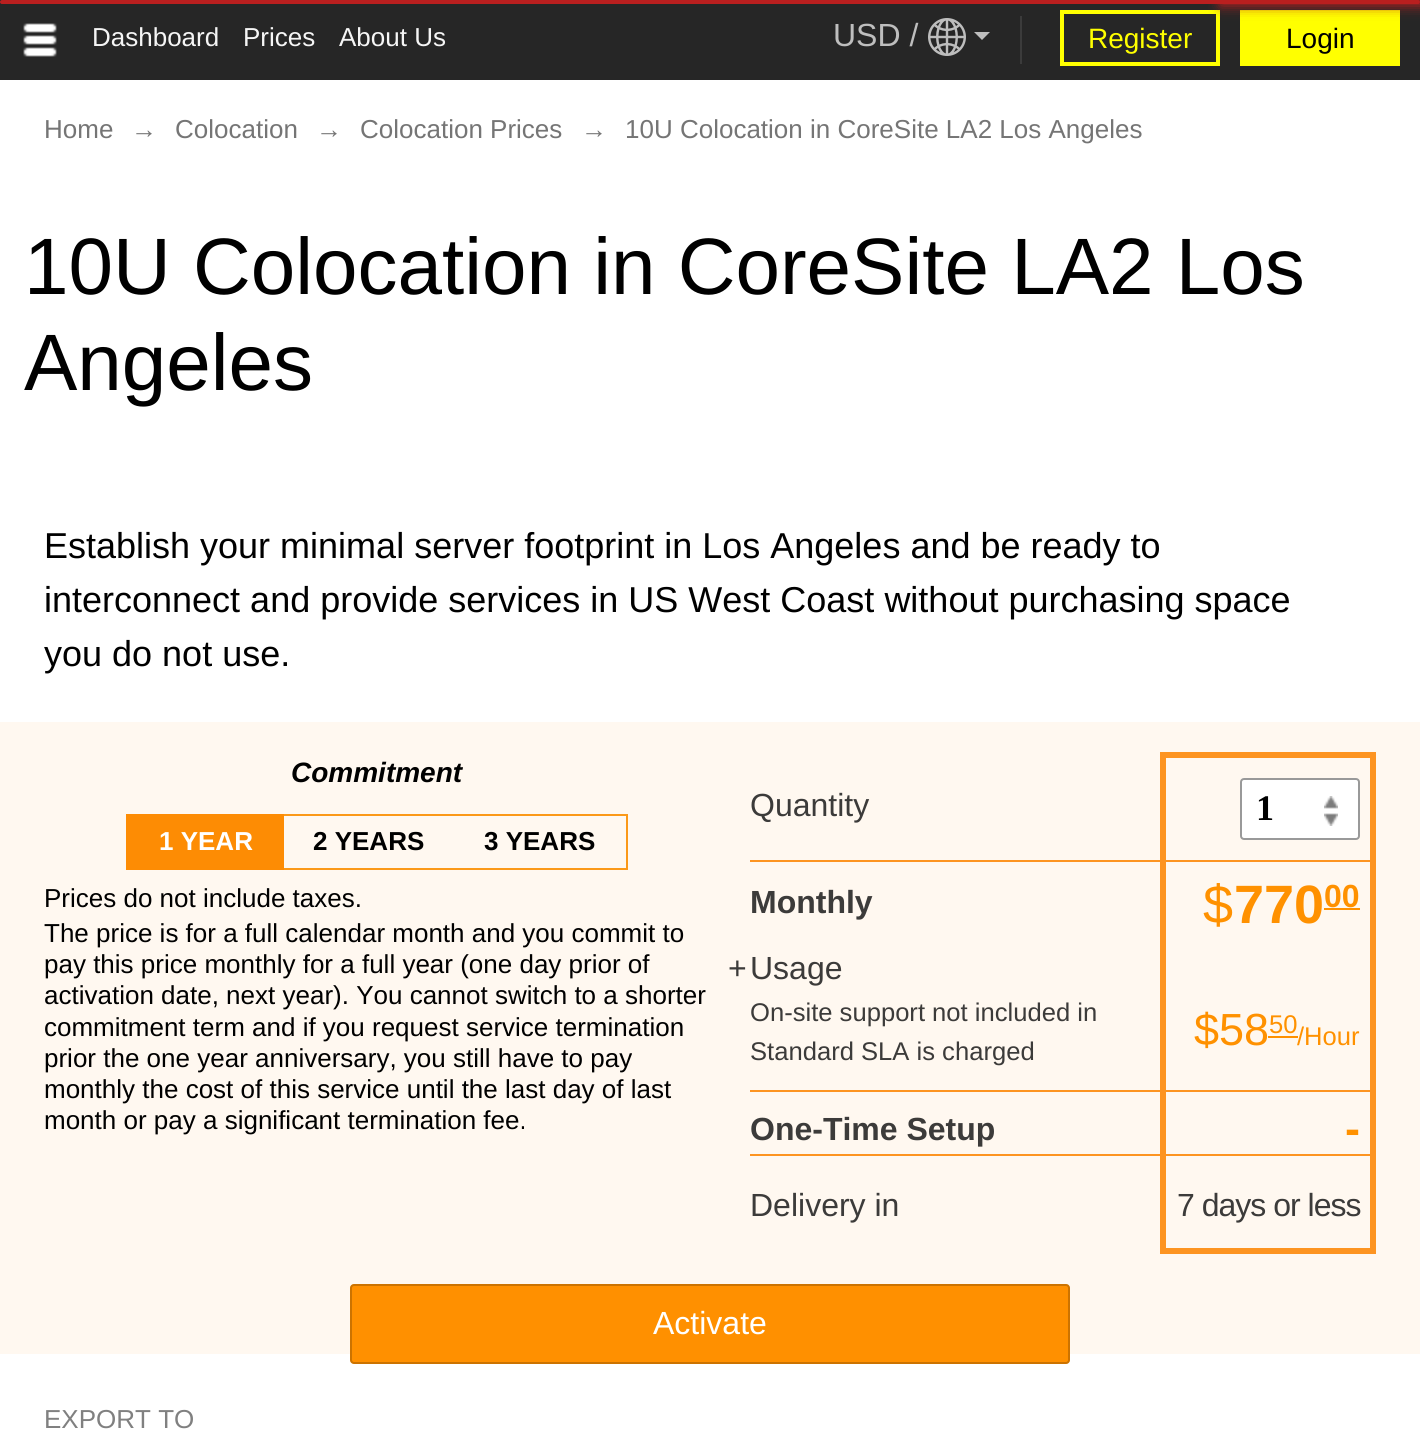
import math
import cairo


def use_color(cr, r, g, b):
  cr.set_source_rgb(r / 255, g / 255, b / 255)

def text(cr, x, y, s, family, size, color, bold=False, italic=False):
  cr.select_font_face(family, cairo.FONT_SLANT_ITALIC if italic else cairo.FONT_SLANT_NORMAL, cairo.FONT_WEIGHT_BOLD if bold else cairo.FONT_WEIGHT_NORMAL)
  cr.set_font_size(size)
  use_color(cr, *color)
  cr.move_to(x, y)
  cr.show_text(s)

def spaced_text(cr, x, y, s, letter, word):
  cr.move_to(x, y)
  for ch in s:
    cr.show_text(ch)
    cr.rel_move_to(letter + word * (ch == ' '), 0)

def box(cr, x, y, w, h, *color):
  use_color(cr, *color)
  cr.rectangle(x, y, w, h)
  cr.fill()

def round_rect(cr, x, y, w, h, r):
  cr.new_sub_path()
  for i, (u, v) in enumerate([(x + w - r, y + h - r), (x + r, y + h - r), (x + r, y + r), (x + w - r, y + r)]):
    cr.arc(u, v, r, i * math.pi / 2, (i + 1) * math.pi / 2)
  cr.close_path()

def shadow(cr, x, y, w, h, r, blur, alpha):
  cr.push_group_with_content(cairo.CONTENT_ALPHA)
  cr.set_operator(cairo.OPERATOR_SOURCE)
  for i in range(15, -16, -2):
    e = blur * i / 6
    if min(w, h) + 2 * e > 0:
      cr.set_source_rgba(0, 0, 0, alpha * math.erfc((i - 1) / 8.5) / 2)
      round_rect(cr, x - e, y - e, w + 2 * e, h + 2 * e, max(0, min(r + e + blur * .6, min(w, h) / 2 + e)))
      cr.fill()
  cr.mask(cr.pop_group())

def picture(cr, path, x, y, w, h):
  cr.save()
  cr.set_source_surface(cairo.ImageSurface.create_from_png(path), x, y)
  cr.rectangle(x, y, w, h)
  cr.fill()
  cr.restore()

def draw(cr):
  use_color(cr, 255, 255, 255)
  cr.paint()
  box(cr, 0, 0, 1420, 80, 38, 38, 38)
  use_color(cr, 185, 31, 31)
  round_rect(cr, 0, 0, 1420, 4, 2)
  cr.fill()
  cr.rectangle(1062, 12, 156, 52)
  use_color(cr, 255, 255, 0)
  cr.set_line_width(4)
  cr.stroke()
  box(cr, 1240, 10, 160, 56, 255, 255, 0)
  cr.save()
  cr.rectangle(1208, 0, 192, 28)
  cr.clip()
  cr.set_fill_rule(cairo.FILL_RULE_EVEN_ODD)
  cr.new_path()
  cr.move_to(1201, 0)
  cr.line_to(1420, 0)
  cr.line_to(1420, 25)
  cr.line_to(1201, 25)
  cr.close_path()
  cr.move_to(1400, 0)
  cr.curve_to(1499.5, 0, 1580, 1, 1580, 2)
  cr.curve_to(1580, 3, 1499.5, 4, 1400, 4)
  cr.curve_to(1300.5, 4, 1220, 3, 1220, 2)
  cr.curve_to(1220, 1, 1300.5, 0, 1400, 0)
  cr.close_path()
  cr.clip()
  use_color(cr, 185, 31, 31)
  shadow(cr, 1220, -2, 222, 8, 4, 6, 1)
  cr.restore()
  cr.save()
  cr.rectangle(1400, 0, 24, 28)
  cr.clip()
  cr.set_fill_rule(cairo.FILL_RULE_EVEN_ODD)
  cr.new_path()
  cr.move_to(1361, 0)
  cr.line_to(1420, 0)
  cr.line_to(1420, 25)
  cr.line_to(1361, 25)
  cr.close_path()
  cr.move_to(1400, 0)
  cr.curve_to(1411, 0, 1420, 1, 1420, 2)
  cr.curve_to(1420, 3, 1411, 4, 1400, 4)
  cr.curve_to(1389, 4, 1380, 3, 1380, 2)
  cr.curve_to(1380, 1, 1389, 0, 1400, 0)
  cr.close_path()
  cr.clip()
  use_color(cr, 185, 31, 31)
  shadow(cr, 1380, -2, 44, 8, 4, 6, 1)
  cr.restore()
  picture(cr, "img_01.png", 23, 23, 34, 34)
  picture(cr, "img_02.png", 928, 18, 38, 38)
  use_color(cr, 190, 190, 190)
  cr.new_path()
  cr.move_to(974, 32)
  cr.line_to(990, 32)
  cr.line_to(982, 40)
  cr.close_path()
  cr.fill()
  box(cr, 1020, 16, 2, 48, 59, 59, 59)
  box(cr, 0, 722, 1420, 632, 255, 248, 240)
  cr.rectangle(127, 815, 500, 54)
  use_color(cr, 251, 153, 25)
  cr.set_line_width(2)
  cr.stroke()
  box(cr, 128, 816, 154, 52, 253, 140, 4)
  cr.rectangle(127, 815, 156, 54)
  cr.stroke()
  box(cr, 750, 860, 624, 2, 253, 148, 33)
  box(cr, 1160, 752, 216, 6, 253, 148, 33)
  box(cr, 750, 1090, 624, 2, 253, 148, 33)
  box(cr, 750, 1154, 624, 2, 253, 148, 33)
  box(cr, 1370, 858, 6, 396, 253, 148, 33)
  box(cr, 1370, 752, 6, 112, 253, 148, 33)
  box(cr, 1160, 1248, 216, 6, 253, 148, 33)
  box(cr, 1160, 858, 6, 396, 253, 148, 33)
  box(cr, 1160, 752, 6, 112, 253, 148, 33)
  use_color(cr, 255, 255, 255)
  round_rect(cr, 1241, 779, 118, 60, 3)
  cr.fill_preserve()
  use_color(cr, 153, 153, 153)
  cr.stroke()
  picture(cr, "img_03.png", 1324, 796, 14, 13)
  picture(cr, "img_04.png", 1324, 813, 14, 13)
  box(cr, 1324, 908, 36, 2, 255, 145, 0)
  box(cr, 1268, 1036, 30, 2, 255, 145, 0)
  use_color(cr, 255, 144, 0)
  round_rect(cr, 350, 1284, 720, 80, 4)
  cr.fill()
  round_rect(cr, 351, 1285, 718, 78, 3)
  cr.set_source_rgba(0, 0, 0, 0.2)
  cr.stroke()
  text(cr, 92, 46, "Dashboard", "Liberation Sans", 26, (245, 245, 245))
  text(cr, 243, 46, "Prices", "Liberation Sans", 26, (245, 245, 245))
  text(cr, 339, 46, "About Us", "Liberation Sans", 26, (245, 245, 245))
  text(cr, 833, 46, "USD /", "Liberation Sans", 32, (190, 190, 190))
  text(cr, 1088, 48, "Register", "Liberation Sans", 28, (255, 255, 0))
  text(cr, 1286, 48, "Login", "Liberation Sans", 28, (0, 0, 0))
  text(cr, 44, 138, "Home", "Liberation Sans", 26, (117, 117, 117))
  text(cr, 131, 138, "→", "Liberation Sans", 26, (117, 117, 117))
  text(cr, 175, 138, "Colocation", "Liberation Sans", 26, (117, 117, 117))
  text(cr, 316, 138, "→", "Liberation Sans", 26, (117, 117, 117))
  text(cr, 360, 138, "Colocation Prices", "Liberation Sans", 26, (117, 117, 117))
  text(cr, 581, 138, "→", "Liberation Sans", 26, (117, 117, 117))
  text(cr, 625, 138, "10U Colocation in CoreSite LA2 Los Angeles", "Liberation Sans", 26, (117, 117, 117))
  text(cr, 24, 294, "10U Colocation in CoreSite LA2 Los", "Liberation Sans", 80, (0, 0, 0))
  text(cr, 24, 390, "Angeles", "Liberation Sans", 80, (0, 0, 0))
  text(cr, 44, 558, "Establish your minimal server footprint in Los Angeles and be ready to", "Liberation Sans", 36, (0, 0, 0))
  text(cr, 44, 612, "interconnect and provide services in US West Coast without purchasing space", "Liberation Sans", 36, (0, 0, 0))
  text(cr, 44, 666, "you do not use.", "Liberation Sans", 36, (0, 0, 0))
  text(cr, 291, 782, "Commitment", "Liberation Sans", 28, (0, 0, 0), bold=True, italic=True)
  text(cr, 159, 850, "1 YEAR", "Liberation Sans", 26, (255, 255, 255), bold=True)
  text(cr, 313, 850, "2 YEARS", "Liberation Sans", 26, (0, 0, 0), bold=True)
  text(cr, 484, 850, "3 YEARS", "Liberation Sans", 26, (0, 0, 0), bold=True)
  text(cr, 44, 907, "Prices do not include taxes.", "Liberation Sans", 26, (0, 0, 0))
  text(cr, 44, 942, "The price is for a full calendar month and you commit to", "Liberation Sans", 26, (0, 0, 0))
  text(cr, 44, 973, "pay this price monthly for a full year (one day prior of", "Liberation Sans", 26, (0, 0, 0))
  text(cr, 44, 1004, "activation date, next year). You cannot switch to a shorter", "Liberation Sans", 26, (0, 0, 0))
  text(cr, 44, 1036, "commitment term and if you request service termination", "Liberation Sans", 26, (0, 0, 0))
  text(cr, 44, 1067, "prior the one year anniversary, you still have to pay", "Liberation Sans", 26, (0, 0, 0))
  text(cr, 44, 1098, "monthly the cost of this service until the last day of last", "Liberation Sans", 26, (0, 0, 0))
  text(cr, 44, 1129, "month or pay a significant termination fee.", "Liberation Sans", 26, (0, 0, 0))
  text(cr, 750, 816, "Quantity", "Liberation Sans", 32, (60, 59, 58))
  text(cr, 1256, 820, "1", "Liberation Serif", 36, (0, 0, 0), bold=True)
  text(cr, 750, 913, "Monthly", "Liberation Sans", 32, (60, 59, 58), bold=True)
  text(cr, 1203, 923, "$", "Liberation Sans", 54, (255, 145, 0))
  text(cr, 1234, 923, "770", "Liberation Sans", 54, (255, 145, 0), bold=True)
  text(cr, 1324, 907, "00", "Liberation Sans", 32, (255, 145, 0), bold=True)
  text(cr, 728, 979, "+", "Liberation Sans", 32, (60, 59, 58))
  text(cr, 750, 979, "Usage", "Liberation Sans", 32, (60, 59, 58))
  text(cr, 750, 1021, "On-site support not included in", "Liberation Sans", 25.6, (60, 59, 58))
  text(cr, 750, 1060, "Standard SLA is charged", "Liberation Sans", 25.6, (60, 59, 58))
  text(cr, 1194, 1045, "$58", "Liberation Sans", 45, (255, 145, 0))
  text(cr, 1269, 1033, "50", "Liberation Sans", 25.6, (255, 145, 0))
  text(cr, 1297, 1045, "/Hour", "Liberation Sans", 25.6, (255, 145, 0))
  text(cr, 750, 1140, "One-Time Setup", "Liberation Sans", 32, (60, 59, 58), bold=True)
  text(cr, 1345, 1144, "-", "Liberation Sans", 45, (255, 145, 0), bold=True)
  text(cr, 750, 1216, "Delivery in", "Liberation Sans", 32, (60, 59, 58))
  spaced_text(cr, 1177, 1216, "7 days or less", -1, 0)
  text(cr, 653, 1334, "Activate", "Liberation Sans", 32, (255, 255, 255))
  text(cr, 44, 1428, "EXPORT TO", "Liberation Sans", 26, (128, 128, 128))


surface = cairo.ImageSurface(cairo.FORMAT_RGB24, 1420, 1432)
cr = cairo.Context(surface)
options = cairo.FontOptions()
options.set_hint_metrics(cairo.HINT_METRICS_OFF)
options.set_hint_style(cairo.HINT_STYLE_NONE)
cr.set_font_options(options)
cr.set_miter_limit(4)
draw(cr)
surface.write_to_png("out.png")
